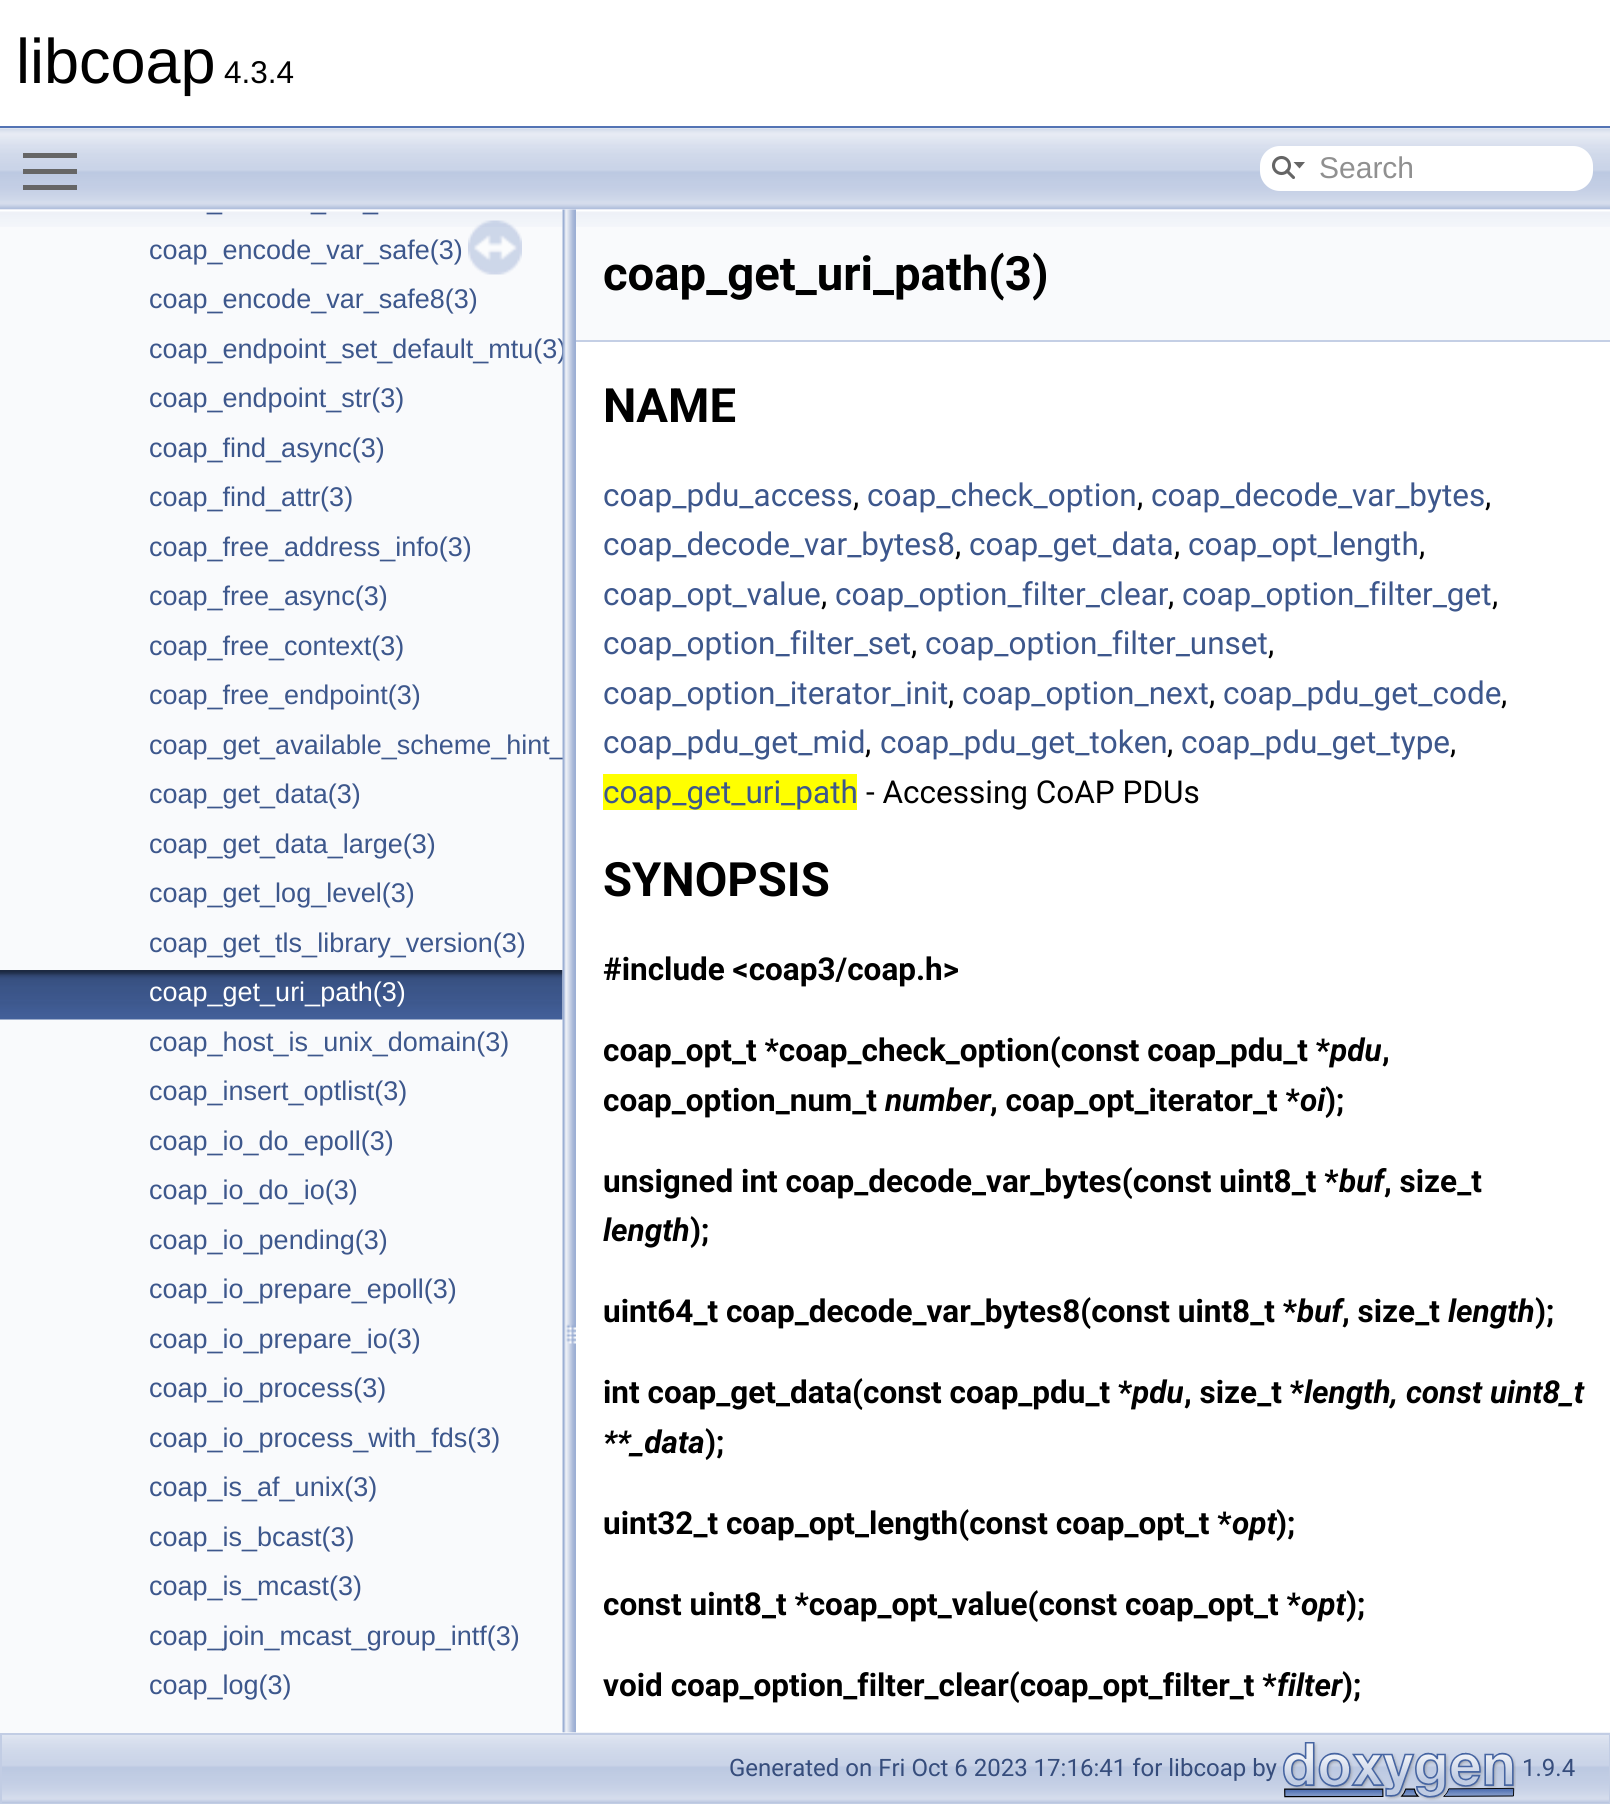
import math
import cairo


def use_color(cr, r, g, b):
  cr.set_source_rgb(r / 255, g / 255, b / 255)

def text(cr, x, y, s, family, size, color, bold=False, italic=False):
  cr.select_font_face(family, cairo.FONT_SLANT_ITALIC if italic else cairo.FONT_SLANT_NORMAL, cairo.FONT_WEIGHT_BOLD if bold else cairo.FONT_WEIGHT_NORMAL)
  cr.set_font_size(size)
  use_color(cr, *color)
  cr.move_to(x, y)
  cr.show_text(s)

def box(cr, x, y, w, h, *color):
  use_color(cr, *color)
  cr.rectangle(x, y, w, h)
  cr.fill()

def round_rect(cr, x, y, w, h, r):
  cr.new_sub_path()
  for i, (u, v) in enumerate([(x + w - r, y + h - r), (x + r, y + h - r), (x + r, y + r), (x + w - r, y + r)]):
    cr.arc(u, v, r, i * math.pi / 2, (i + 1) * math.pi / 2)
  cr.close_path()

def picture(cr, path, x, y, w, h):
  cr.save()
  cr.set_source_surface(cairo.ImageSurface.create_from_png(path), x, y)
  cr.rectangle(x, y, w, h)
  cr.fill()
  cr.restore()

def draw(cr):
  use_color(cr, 255, 255, 255)
  cr.paint()
  box(cr, 0, 126, 1610, 2, 83, 115, 180)
  picture(cr, "img_07.png", 2, 1732, 1608, 71)
  box(cr, 0, 209, 563, 1524, 249, 250, 252)
  picture(cr, "img_02.png", 0, 210, 563, 17)
  picture(cr, "img_03.png", 0, 970, 563, 50)
  picture(cr, "img_04.png", 468, 220, 54, 55)
  box(cr, 576, 209, 1034, 131, 249, 250, 252)
  picture(cr, "img_06.png", 576, 210, 1034, 17)
  box(cr, 576, 340, 1034, 2, 196, 207, 229)
  box(cr, 603, 774, 254, 36, 255, 255, 0)
  cr.rectangle(1, 1734, 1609, 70)
  use_color(cr, 194, 205, 228)
  cr.stroke()
  picture(cr, "img_08.png", 1283, 1742, 233, 59)
  text(cr, 16, 83, "libcoap", "Liberation Sans", 63, (0, 0, 0))
  text(cr, 224, 83, "4.3.4", "Liberation Sans", 31.5, (0, 0, 0))
  text(cr, 207, 209, "_", "Liberation Sans", 27, (61, 87, 140))
  text(cr, 311, 209, "_", "Liberation Sans", 27, (61, 87, 140))
  text(cr, 363, 209, "_", "Liberation Sans", 27, (61, 87, 140))
  text(cr, 149, 259, "coap_encode_var_safe(3)", "Liberation Sans", 27, (61, 87, 140))
  text(cr, 149, 308, "coap_encode_var_safe8(3)", "Liberation Sans", 27, (61, 87, 140))
  text(cr, 149, 358, "coap_endpoint_set_default_mtu(3)", "Liberation Sans", 27, (61, 87, 140))
  text(cr, 149, 407, "coap_endpoint_str(3)", "Liberation Sans", 27, (61, 87, 140))
  text(cr, 149, 457, "coap_find_async(3)", "Liberation Sans", 27, (61, 87, 140))
  text(cr, 149, 506, "coap_find_attr(3)", "Liberation Sans", 27, (61, 87, 140))
  text(cr, 149, 556, "coap_free_address_info(3)", "Liberation Sans", 27, (61, 87, 140))
  text(cr, 149, 605, "coap_free_async(3)", "Liberation Sans", 27, (61, 87, 140))
  text(cr, 149, 655, "coap_free_context(3)", "Liberation Sans", 27, (61, 87, 140))
  text(cr, 149, 704, "coap_free_endpoint(3)", "Liberation Sans", 27, (61, 87, 140))
  text(cr, 149, 754, "coap_get_available_scheme_hint_", "Liberation Sans", 27, (61, 87, 140))
  text(cr, 149, 803, "coap_get_data(3)", "Liberation Sans", 27, (61, 87, 140))
  text(cr, 149, 853, "coap_get_data_large(3)", "Liberation Sans", 27, (61, 87, 140))
  text(cr, 149, 902, "coap_get_log_level(3)", "Liberation Sans", 27, (61, 87, 140))
  text(cr, 149, 952, "coap_get_tls_library_version(3)", "Liberation Sans", 27, (61, 87, 140))
  text(cr, 149, 1001, "coap_get_uri_path(3)", "Liberation Sans", 27, (255, 255, 255))
  text(cr, 149, 1051, "coap_host_is_unix_domain(3)", "Liberation Sans", 27, (61, 87, 140))
  text(cr, 149, 1100, "coap_insert_optlist(3)", "Liberation Sans", 27, (61, 87, 140))
  text(cr, 149, 1150, "coap_io_do_epoll(3)", "Liberation Sans", 27, (61, 87, 140))
  text(cr, 149, 1199, "coap_io_do_io(3)", "Liberation Sans", 27, (61, 87, 140))
  text(cr, 149, 1249, "coap_io_pending(3)", "Liberation Sans", 27, (61, 87, 140))
  text(cr, 149, 1298, "coap_io_prepare_epoll(3)", "Liberation Sans", 27, (61, 87, 140))
  text(cr, 149, 1348, "coap_io_prepare_io(3)", "Liberation Sans", 27, (61, 87, 140))
  text(cr, 149, 1397, "coap_io_process(3)", "Liberation Sans", 27, (61, 87, 140))
  text(cr, 149, 1447, "coap_io_process_with_fds(3)", "Liberation Sans", 27, (61, 87, 140))
  text(cr, 149, 1496, "coap_is_af_unix(3)", "Liberation Sans", 27, (61, 87, 140))
  text(cr, 149, 1546, "coap_is_bcast(3)", "Liberation Sans", 27, (61, 87, 140))
  text(cr, 149, 1595, "coap_is_mcast(3)", "Liberation Sans", 27, (61, 87, 140))
  text(cr, 149, 1645, "coap_join_mcast_group_intf(3)", "Liberation Sans", 27, (61, 87, 140))
  text(cr, 149, 1694, "coap_log(3)", "Liberation Sans", 27, (61, 87, 140))
  picture(cr, "img_05.png", 562, 209, 14, 1524)
  picture(cr, "img_01.png", 0, 128, 1610, 82)
  use_color(cr, 255, 255, 255)
  round_rect(cr, 1260, 146, 333, 45, 20)
  cr.fill()
  text(cr, 1319, 178, "Search", "Liberation Sans", 30, (144, 144, 144))
  cr.new_path()
  cr.arc(1281.5, 165.5, 8, 0, 2 * math.pi)
  use_color(cr, 101, 101, 101)
  cr.set_line_width(3.1)
  cr.stroke()
  cr.new_path()
  cr.move_to(1287, 171)
  cr.line_to(1293.5, 177.5)
  cr.set_line_cap(cairo.LINE_CAP_ROUND)
  cr.stroke()
  cr.new_path()
  cr.move_to(1293.5, 162)
  cr.line_to(1299.5, 168.5)
  cr.line_to(1305, 162)
  cr.close_path()
  cr.fill()
  box(cr, 23, 185, 54, 5, 102, 102, 102)
  box(cr, 23, 153, 54, 5, 102, 102, 102)
  box(cr, 23, 169, 54, 5, 102, 102, 102)
  text(cr, 603, 290, "coap_get_uri_path(3)", "Roboto", 47.25, (0, 0, 0), bold=True)
  text(cr, 603, 422, "NAME", "Roboto", 47.25, (0, 0, 0), bold=True)
  text(cr, 603, 506, "coap_pdu_access", "Roboto", 31.5, (61, 87, 140))
  text(cr, 853, 506, ",", "Roboto", 31.5, (0, 0, 0))
  text(cr, 867, 506, "coap_check_option", "Roboto", 31.5, (61, 87, 140))
  text(cr, 1137, 506, ",", "Roboto", 31.5, (0, 0, 0))
  text(cr, 1151, 506, "coap_decode_var_bytes", "Roboto", 31.5, (61, 87, 140))
  text(cr, 1485, 506, ",", "Roboto", 31.5, (0, 0, 0))
  text(cr, 603, 555, "coap_decode_var_bytes8", "Roboto", 31.5, (61, 87, 140))
  text(cr, 955, 555, ",", "Roboto", 31.5, (0, 0, 0))
  text(cr, 969, 555, "coap_get_data", "Roboto", 31.5, (61, 87, 140))
  text(cr, 1174, 555, ",", "Roboto", 31.5, (0, 0, 0))
  text(cr, 1188, 555, "coap_opt_length", "Roboto", 31.5, (61, 87, 140))
  text(cr, 1419, 555, ",", "Roboto", 31.5, (0, 0, 0))
  text(cr, 603, 605, "coap_opt_value", "Roboto", 31.5, (61, 87, 140))
  text(cr, 821, 605, ",", "Roboto", 31.5, (0, 0, 0))
  text(cr, 835, 605, "coap_option_filter_clear", "Roboto", 31.5, (61, 87, 140))
  text(cr, 1168, 605, ",", "Roboto", 31.5, (0, 0, 0))
  text(cr, 1182, 605, "coap_option_filter_get", "Roboto", 31.5, (61, 87, 140))
  text(cr, 1492, 605, ",", "Roboto", 31.5, (0, 0, 0))
  text(cr, 603, 654, "coap_option_filter_set", "Roboto", 31.5, (61, 87, 140))
  text(cr, 911, 654, ",", "Roboto", 31.5, (0, 0, 0))
  text(cr, 925, 654, "coap_option_filter_unset", "Roboto", 31.5, (61, 87, 140))
  text(cr, 1268, 654, ",", "Roboto", 31.5, (0, 0, 0))
  text(cr, 603, 704, "coap_option_iterator_init", "Roboto", 31.5, (61, 87, 140))
  text(cr, 948, 704, ",", "Roboto", 31.5, (0, 0, 0))
  text(cr, 962, 704, "coap_option_next", "Roboto", 31.5, (61, 87, 140))
  text(cr, 1209, 704, ",", "Roboto", 31.5, (0, 0, 0))
  text(cr, 1223, 704, "coap_pdu_get_code", "Roboto", 31.5, (61, 87, 140))
  text(cr, 1501, 704, ",", "Roboto", 31.5, (0, 0, 0))
  text(cr, 603, 753, "coap_pdu_get_mid", "Roboto", 31.5, (61, 87, 140))
  text(cr, 865, 753, ",", "Roboto", 31.5, (0, 0, 0))
  text(cr, 880, 753, "coap_pdu_get_token", "Roboto", 31.5, (61, 87, 140))
  text(cr, 1167, 753, ",", "Roboto", 31.5, (0, 0, 0))
  text(cr, 1181, 753, "coap_pdu_get_type", "Roboto", 31.5, (61, 87, 140))
  text(cr, 1450, 753, ",", "Roboto", 31.5, (0, 0, 0))
  text(cr, 603, 803, "coap_get_uri_path", "Roboto", 31.5, (61, 87, 140))
  text(cr, 866, 803, "- Accessing CoAP PDUs", "Roboto", 31.5, (0, 0, 0))
  text(cr, 603, 896, "SYNOPSIS", "Roboto", 47.25, (0, 0, 0), bold=True)
  text(cr, 603, 980, "#include <coap3/coap.h>", "Roboto", 31.5, (0, 0, 0), bold=True)
  text(cr, 603, 1061, "coap_opt_t *coap_check_option(const coap_pdu_t *", "Roboto", 31.5, (0, 0, 0), bold=True)
  text(cr, 1330, 1061, "pdu", "Roboto", 31.5, (0, 0, 0), bold=True, italic=True)
  text(cr, 1382, 1061, ",", "Roboto", 31.5, (0, 0, 0), bold=True)
  text(cr, 603, 1111, "coap_option_num_t", "Roboto", 31.5, (0, 0, 0), bold=True)
  text(cr, 885, 1111, "number", "Roboto", 31.5, (0, 0, 0), bold=True, italic=True)
  text(cr, 990, 1111, ", coap_opt_iterator_t *", "Roboto", 31.5, (0, 0, 0), bold=True)
  text(cr, 1300, 1111, "oi", "Roboto", 31.5, (0, 0, 0), bold=True, italic=True)
  text(cr, 1325, 1111, ");", "Roboto", 31.5, (0, 0, 0), bold=True)
  text(cr, 603, 1192, "unsigned int coap_decode_var_bytes(const uint8_t *", "Roboto", 31.5, (0, 0, 0), bold=True)
  text(cr, 1339, 1192, "buf", "Roboto", 31.5, (0, 0, 0), bold=True, italic=True)
  text(cr, 1384, 1192, ", size_t", "Roboto", 31.5, (0, 0, 0), bold=True)
  text(cr, 603, 1241, "length", "Roboto", 31.5, (0, 0, 0), bold=True, italic=True)
  text(cr, 690, 1241, ");", "Roboto", 31.5, (0, 0, 0), bold=True)
  text(cr, 603, 1322, "uint64_t coap_decode_var_bytes8(const uint8_t *", "Roboto", 31.5, (0, 0, 0), bold=True)
  text(cr, 1297, 1322, "buf", "Roboto", 31.5, (0, 0, 0), bold=True, italic=True)
  text(cr, 1342, 1322, ", size_t", "Roboto", 31.5, (0, 0, 0), bold=True)
  text(cr, 1448, 1322, "length", "Roboto", 31.5, (0, 0, 0), bold=True, italic=True)
  text(cr, 1535, 1322, ");", "Roboto", 31.5, (0, 0, 0), bold=True)
  text(cr, 603, 1403, "int coap_get_data(const coap_pdu_t *", "Roboto", 31.5, (0, 0, 0), bold=True)
  text(cr, 1132, 1403, "pdu", "Roboto", 31.5, (0, 0, 0), bold=True, italic=True)
  text(cr, 1184, 1403, ", size_t *", "Roboto", 31.5, (0, 0, 0), bold=True)
  text(cr, 1304, 1403, "length, const uint8_t", "Roboto", 31.5, (0, 0, 0), bold=True, italic=True)
  text(cr, 603, 1453, "**_data", "Roboto", 31.5, (0, 0, 0), bold=True, italic=True)
  text(cr, 705, 1453, ");", "Roboto", 31.5, (0, 0, 0), bold=True)
  text(cr, 603, 1534, "uint32_t coap_opt_length(const coap_opt_t *", "Roboto", 31.5, (0, 0, 0), bold=True)
  text(cr, 1232, 1534, "opt", "Roboto", 31.5, (0, 0, 0), bold=True, italic=True)
  text(cr, 1276, 1534, ");", "Roboto", 31.5, (0, 0, 0), bold=True)
  text(cr, 603, 1615, "const uint8_t *coap_opt_value(const coap_opt_t *", "Roboto", 31.5, (0, 0, 0), bold=True)
  text(cr, 1301, 1615, "opt", "Roboto", 31.5, (0, 0, 0), bold=True, italic=True)
  text(cr, 1346, 1615, ");", "Roboto", 31.5, (0, 0, 0), bold=True)
  text(cr, 603, 1696, "void coap_option_filter_clear(coap_opt_filter_t *", "Roboto", 31.5, (0, 0, 0), bold=True)
  text(cr, 1277, 1696, "filter", "Roboto", 31.5, (0, 0, 0), bold=True, italic=True)
  text(cr, 1342, 1696, ");", "Roboto", 31.5, (0, 0, 0), bold=True)
  text(cr, 729, 1776, "Generated on Fri Oct 6 2023 17:16:41 for libcoap by", "Roboto", 24, (54, 77, 124))
  text(cr, 1522, 1776, "1.9.4", "Roboto", 24, (54, 77, 124))


surface = cairo.ImageSurface(cairo.FORMAT_RGB24, 1610, 1804)
cr = cairo.Context(surface)
options = cairo.FontOptions()
options.set_hint_metrics(cairo.HINT_METRICS_OFF)
options.set_hint_style(cairo.HINT_STYLE_NONE)
cr.set_font_options(options)
cr.set_miter_limit(4)
draw(cr)
surface.write_to_png("out.png")
